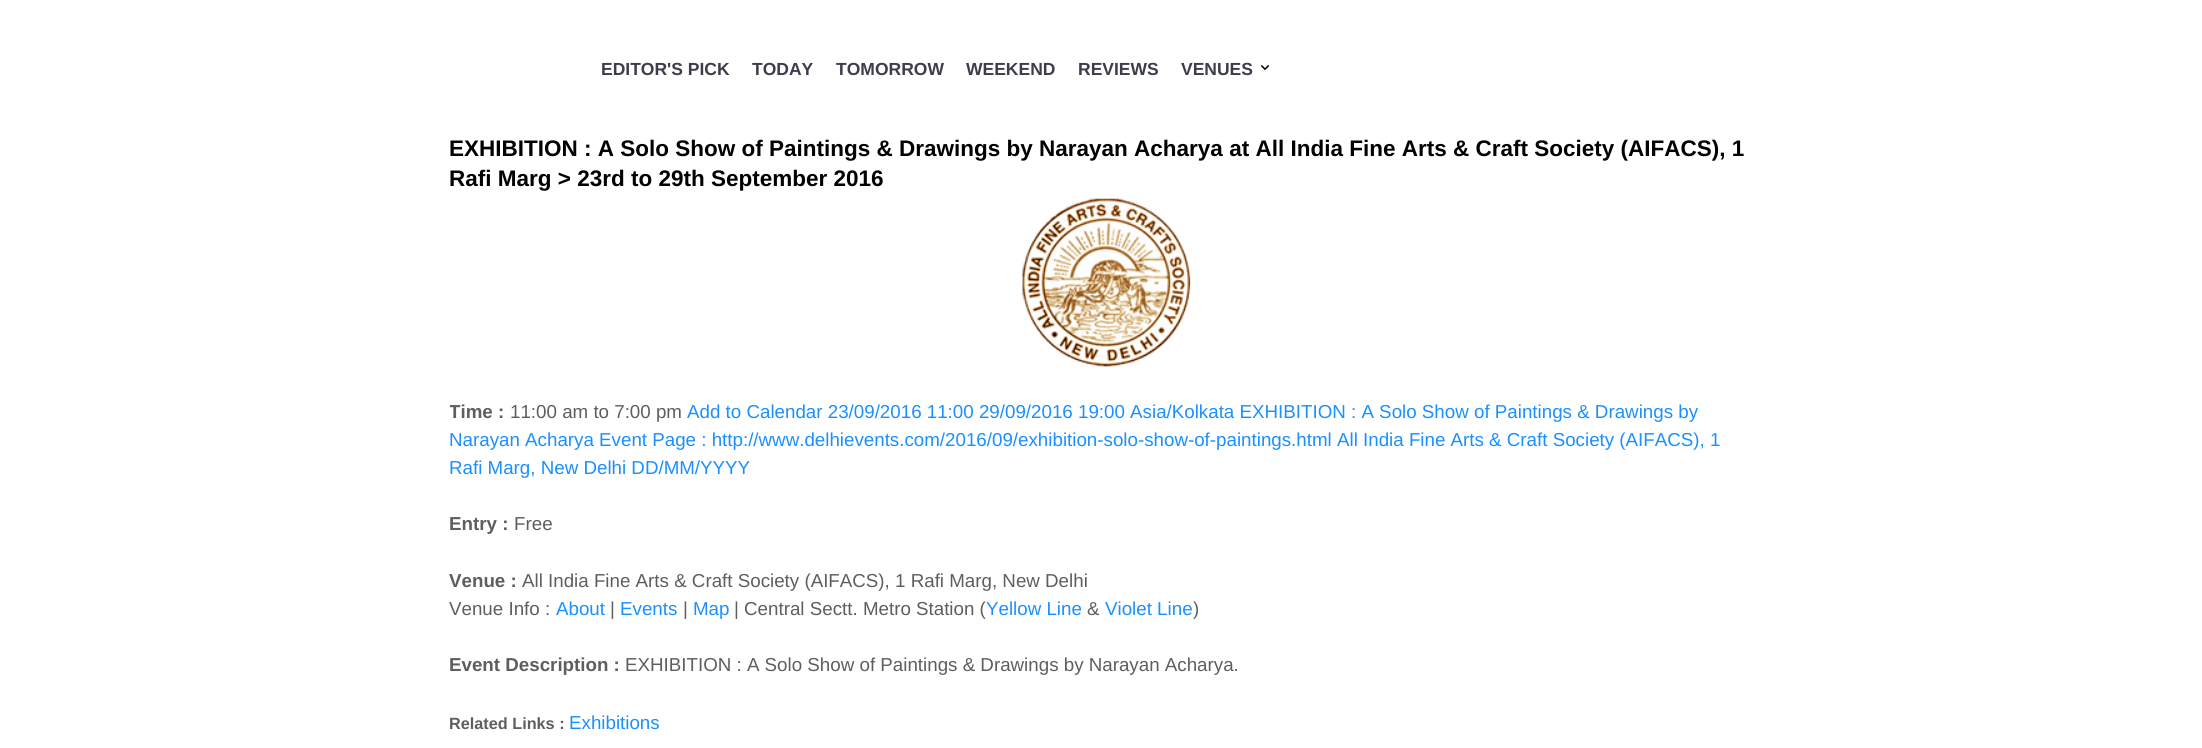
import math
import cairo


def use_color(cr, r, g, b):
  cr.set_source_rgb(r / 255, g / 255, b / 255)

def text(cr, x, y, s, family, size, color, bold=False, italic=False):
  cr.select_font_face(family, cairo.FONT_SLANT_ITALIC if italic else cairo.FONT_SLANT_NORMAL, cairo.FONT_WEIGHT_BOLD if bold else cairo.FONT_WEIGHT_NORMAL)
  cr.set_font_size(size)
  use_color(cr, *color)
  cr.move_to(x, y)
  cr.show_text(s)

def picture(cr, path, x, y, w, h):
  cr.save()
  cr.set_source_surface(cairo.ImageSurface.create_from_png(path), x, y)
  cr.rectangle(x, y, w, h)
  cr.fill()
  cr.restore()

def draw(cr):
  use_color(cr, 255, 255, 255)
  cr.paint()
  picture(cr, "img_01.png", 1260, 65, 10, 6)
  picture(cr, "img_02.png", 1022, 198, 169, 169)
  text(cr, 601, 75, "EDITOR'S PICK", "Liberation Sans", 17.5, (63, 60, 75), bold=True)
  text(cr, 752, 75, "TODAY", "Liberation Sans", 17.5, (63, 60, 75), bold=True)
  text(cr, 836, 75, "TOMORROW", "Liberation Sans", 17.5, (63, 60, 75), bold=True)
  text(cr, 966, 75, "WEEKEND", "Liberation Sans", 17.5, (63, 60, 75), bold=True)
  text(cr, 1078, 75, "REVIEWS", "Liberation Sans", 17.5, (63, 60, 75), bold=True)
  text(cr, 1181, 75, "VENUES", "Liberation Sans", 17.5, (63, 60, 75), bold=True)
  text(cr, 449, 156, "EXHIBITION : A Solo Show of Paintings & Drawings by Narayan Acharya at All India Fine Arts & Craft Society (AIFACS), 1", "Liberation Sans", 22.5, (1, 1, 1), bold=True)
  text(cr, 449, 186, "Rafi Marg > 23rd to 29th September 2016", "Liberation Sans", 22.5, (1, 1, 1), bold=True)
  cr.save()
  cr.rectangle(450, 195, 1304, 543)
  cr.clip()
  text(cr, 449, 418, "Time :", "Liberation Sans", 18.75, (94, 94, 94), bold=True)
  cr.restore()
  text(cr, 510, 418, "11:00 am to 7:00 pm", "Liberation Sans", 18.75, (94, 94, 94))
  text(cr, 687, 418, "Add to Calendar 23/09/2016 11:00 29/09/2016 19:00 Asia/Kolkata EXHIBITION : A Solo Show of Paintings & Drawings by", "Liberation Sans", 18.75, (26, 144, 255))
  text(cr, 449, 446, "Narayan Acharya Event Page : http://www.delhievents.com/2016/09/exhibition-solo-show-of-paintings.html All India Fine Arts & Craft Society (AIFACS), 1", "Liberation Sans", 18.75, (26, 144, 255))
  text(cr, 449, 474, "Rafi Marg, New Delhi DD/MM/YYYY", "Liberation Sans", 18.75, (26, 144, 255))
  text(cr, 449, 530, "Entry :", "Liberation Sans", 18.75, (94, 94, 94), bold=True)
  text(cr, 514, 530, "Free", "Liberation Sans", 18.75, (94, 94, 94))
  text(cr, 449, 587, "Venue :", "Liberation Sans", 18.75, (94, 94, 94), bold=True)
  text(cr, 522, 587, "All India Fine Arts & Craft Society (AIFACS), 1 Rafi Marg, New Delhi", "Liberation Sans", 18.75, (94, 94, 94))
  text(cr, 449, 615, "Venue Info :", "Liberation Sans", 18.75, (94, 94, 94))
  text(cr, 556, 615, "About", "Liberation Sans", 18.75, (26, 144, 255))
  text(cr, 610, 615, "|", "Liberation Sans", 18.75, (94, 94, 94))
  text(cr, 620, 615, "Events", "Liberation Sans", 18.75, (26, 144, 255))
  text(cr, 683, 615, "|", "Liberation Sans", 18.75, (94, 94, 94))
  text(cr, 693, 615, "Map", "Liberation Sans", 18.75, (26, 144, 255))
  text(cr, 734, 615, "| Central Sectt. Metro Station (", "Liberation Sans", 18.75, (94, 94, 94))
  text(cr, 986, 615, "Yellow Line", "Liberation Sans", 18.75, (26, 144, 255))
  text(cr, 1087, 615, "&", "Liberation Sans", 18.75, (94, 94, 94))
  text(cr, 1105, 615, "Violet Line", "Liberation Sans", 18.75, (26, 144, 255))
  text(cr, 1193, 615, ")", "Liberation Sans", 18.75, (94, 94, 94))
  text(cr, 449, 671, "Event Description :", "Liberation Sans", 18.75, (94, 94, 94), bold=True)
  text(cr, 625, 671, "EXHIBITION : A Solo Show of Paintings & Drawings by Narayan Acharya.", "Liberation Sans", 18.75, (94, 94, 94))
  text(cr, 449, 729, "Related Links :", "Liberation Sans", 16.25, (94, 94, 94), bold=True)
  text(cr, 569, 729, "Exhibitions", "Liberation Sans", 18.75, (26, 144, 255))


surface = cairo.ImageSurface(cairo.FORMAT_RGB24, 2202, 748)
cr = cairo.Context(surface)
options = cairo.FontOptions()
options.set_hint_metrics(cairo.HINT_METRICS_OFF)
options.set_hint_style(cairo.HINT_STYLE_NONE)
cr.set_font_options(options)
cr.set_miter_limit(4)
draw(cr)
surface.write_to_png("out.png")
